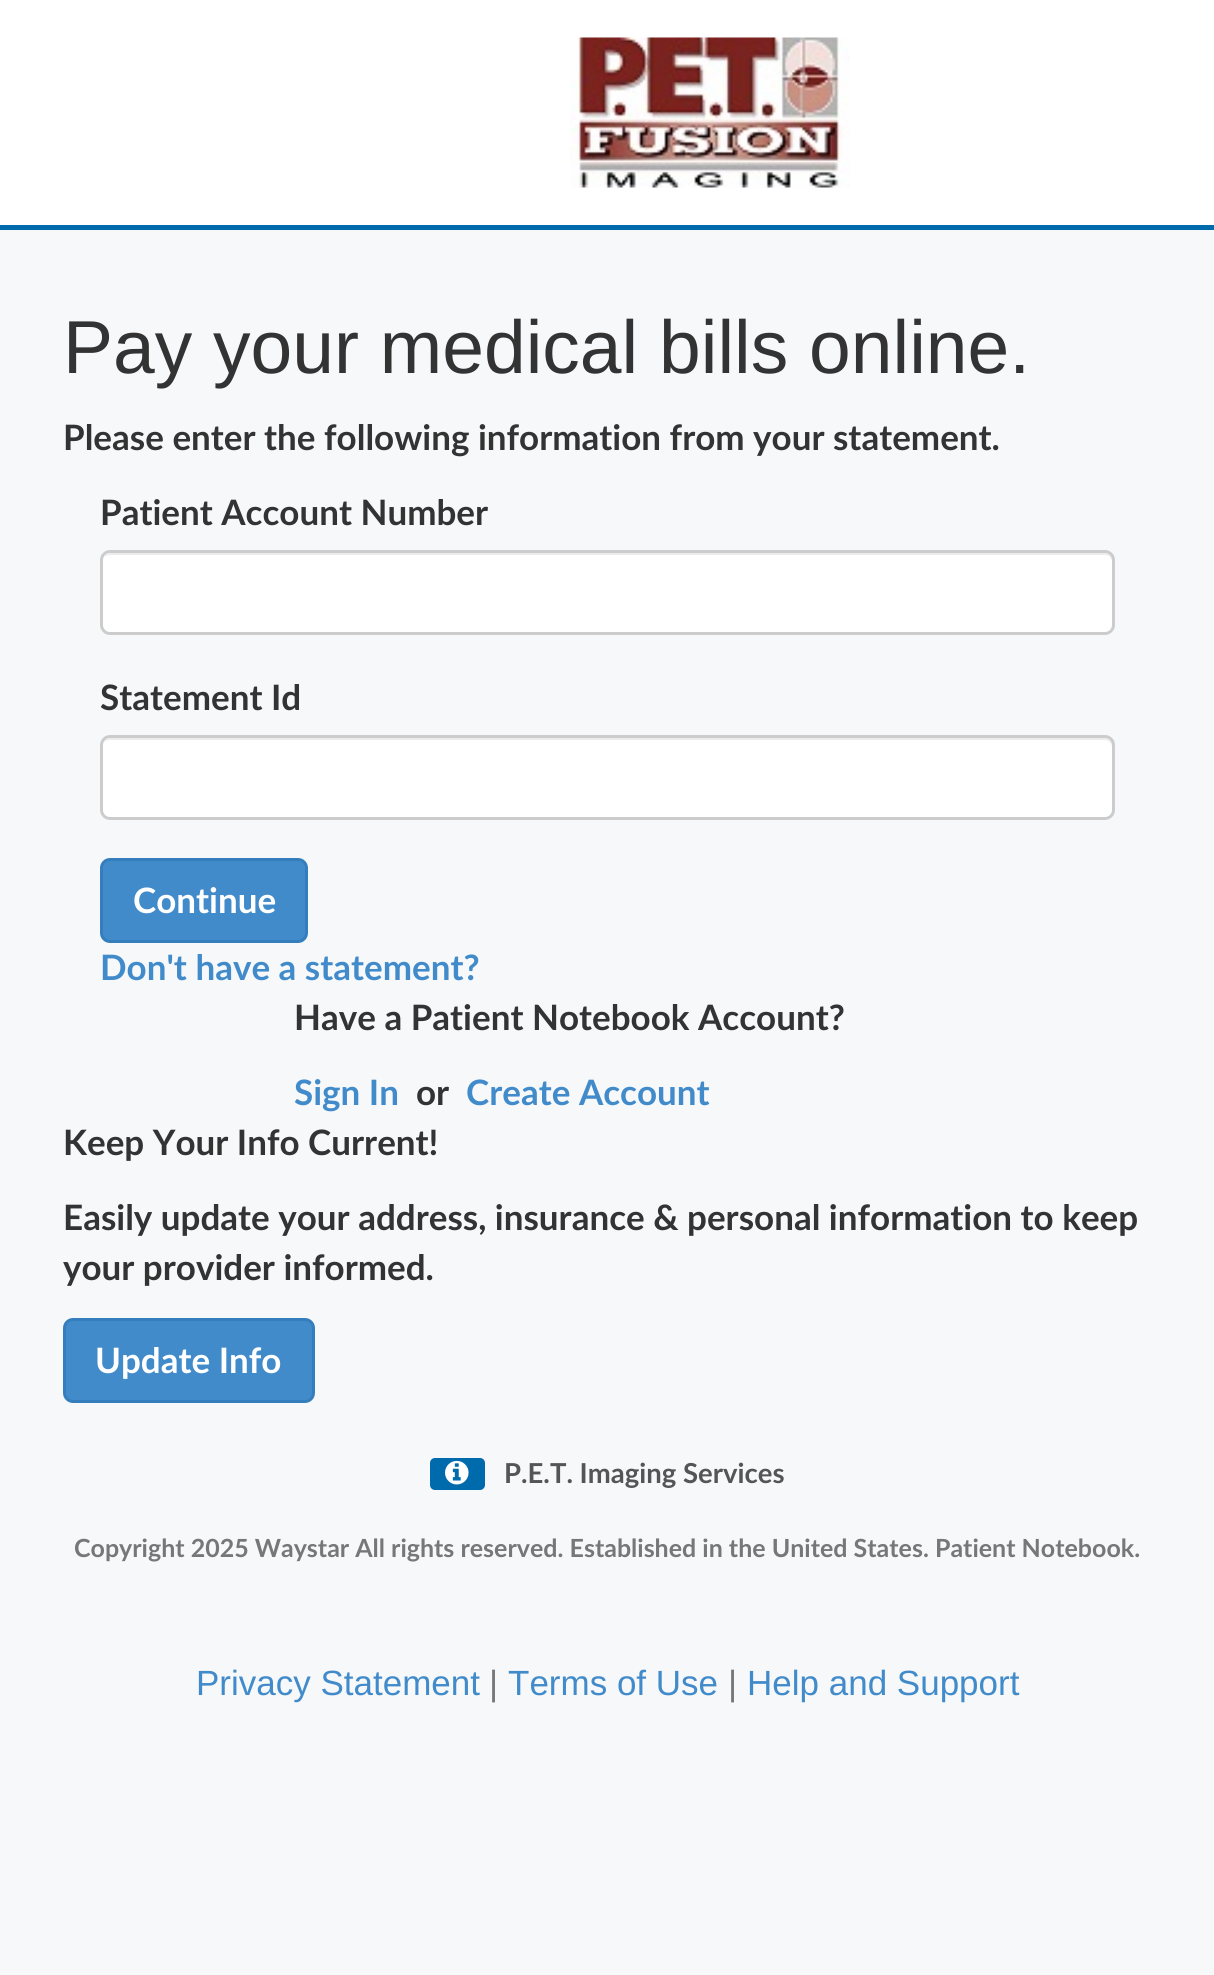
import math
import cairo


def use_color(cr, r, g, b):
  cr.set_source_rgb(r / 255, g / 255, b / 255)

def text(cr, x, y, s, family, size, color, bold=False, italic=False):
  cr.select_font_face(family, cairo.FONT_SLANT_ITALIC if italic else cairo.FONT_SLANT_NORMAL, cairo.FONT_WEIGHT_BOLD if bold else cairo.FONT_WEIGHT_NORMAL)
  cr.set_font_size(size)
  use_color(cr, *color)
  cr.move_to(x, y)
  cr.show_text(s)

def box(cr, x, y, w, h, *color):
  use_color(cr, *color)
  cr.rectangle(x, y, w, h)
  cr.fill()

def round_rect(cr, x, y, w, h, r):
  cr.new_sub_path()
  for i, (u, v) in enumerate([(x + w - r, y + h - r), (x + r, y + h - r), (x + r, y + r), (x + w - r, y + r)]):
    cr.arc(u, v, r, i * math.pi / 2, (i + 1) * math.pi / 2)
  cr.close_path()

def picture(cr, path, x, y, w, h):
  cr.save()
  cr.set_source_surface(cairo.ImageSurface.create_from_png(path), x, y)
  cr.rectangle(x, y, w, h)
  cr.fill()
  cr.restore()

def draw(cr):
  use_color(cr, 246, 248, 250)
  cr.paint()
  box(cr, 0, 0, 1214, 225, 255, 255, 255)
  box(cr, 0, 225, 1214, 5, 0, 107, 172)
  picture(cr, "img_01.png", 570, 37, 280, 151)
  use_color(cr, 255, 255, 255)
  round_rect(cr, 100, 550, 1015, 85, 10)
  cr.fill()
  use_color(cr, 236, 236, 236)
  cr.new_path()
  cr.move_to(110, 555)
  cr.line_to(1105, 555)
  cr.curve_to(1109, 555, 1112, 558, 1112, 562)
  cr.line_to(1112, 629)
  cr.curve_to(1113, 628, 1113, 626, 1113, 625)
  cr.line_to(1113, 561)
  cr.curve_to(1113, 557, 1109, 553, 1105, 553)
  cr.line_to(111, 553)
  cr.curve_to(108, 553, 105, 555, 104, 558)
  cr.curve_to(105, 556, 108, 555, 110, 555)
  cr.close_path()
  cr.fill()
  round_rect(cr, 101.5, 551.5, 1012, 82, 8.5)
  use_color(cr, 204, 204, 204)
  cr.set_line_width(3)
  cr.stroke()
  use_color(cr, 255, 255, 255)
  round_rect(cr, 100, 735, 1015, 85, 10)
  cr.fill()
  use_color(cr, 236, 236, 236)
  cr.new_path()
  cr.move_to(110, 740)
  cr.line_to(1105, 740)
  cr.curve_to(1109, 740, 1112, 743, 1112, 748)
  cr.line_to(1112, 814)
  cr.curve_to(1113, 813, 1113, 812, 1113, 810)
  cr.line_to(1113, 746)
  cr.curve_to(1113, 742, 1109, 738, 1105, 738)
  cr.line_to(111, 738)
  cr.curve_to(108, 738, 105, 740, 103, 743)
  cr.curve_to(105, 741, 108, 740, 110, 740)
  cr.close_path()
  cr.fill()
  round_rect(cr, 101.5, 736.5, 1012, 82, 8.5)
  use_color(cr, 204, 204, 204)
  cr.stroke()
  use_color(cr, 66, 139, 202)
  round_rect(cr, 101.5, 859.5, 205, 82, 8.5)
  cr.fill_preserve()
  use_color(cr, 53, 126, 189)
  cr.stroke()
  use_color(cr, 66, 139, 202)
  round_rect(cr, 64.5, 1319.5, 249, 82, 8.5)
  cr.fill_preserve()
  use_color(cr, 53, 126, 189)
  cr.stroke()
  use_color(cr, 0, 107, 172)
  round_rect(cr, 430, 1458, 55, 32, 5)
  cr.fill()
  picture(cr, "img_02.png", 445, 1460, 24, 25)
  text(cr, 63, 373, "Pay your medical bills online.", "Liberation Sans", 75, (51, 51, 51))
  text(cr, 63, 450, "Please enter the following information from your statement.", "Lato", 35, (51, 51, 51), bold=True)
  text(cr, 100, 525, "Patient Account Number", "Lato", 35, (51, 51, 51), bold=True)
  text(cr, 100, 710, "Statement Id", "Lato", 35, (51, 51, 51), bold=True)
  text(cr, 133, 913, "Continue", "Lato", 35, (255, 255, 255), bold=True)
  text(cr, 100, 980, "Don't have a statement?", "Lato", 35, (66, 139, 202), bold=True)
  text(cr, 294, 1030, "Have a Patient Notebook Account?", "Lato", 35, (51, 51, 51), bold=True)
  text(cr, 294, 1105, "Sign In", "Lato", 35, (66, 139, 202), bold=True)
  text(cr, 416, 1105, "or", "Lato", 35, (51, 51, 51), bold=True)
  text(cr, 466, 1105, "Create Account", "Lato", 35, (66, 139, 202), bold=True)
  text(cr, 63, 1155, "Keep Your Info Current!", "Lato", 35, (51, 51, 51), bold=True)
  text(cr, 63, 1230, "Easily update your address, insurance & personal information to keep", "Lato", 35, (51, 51, 51), bold=True)
  text(cr, 63, 1280, "your provider informed.", "Lato", 35, (51, 51, 51), bold=True)
  text(cr, 95, 1373, "Update Info", "Lato", 35, (255, 255, 255), bold=True)
  text(cr, 504, 1483, "P.E.T. Imaging Services", "Lato", 27.5, (85, 85, 85), bold=True)
  text(cr, 74, 1557, "Copyright 2025 Waystar All rights reserved. Established in the United States. Patient Notebook.", "Lato", 25, (119, 119, 119), bold=True)
  text(cr, 196, 1695, "Privacy Statement", "Liberation Sans", 35, (66, 139, 202))
  text(cr, 489, 1695, "|", "Liberation Sans", 35, (119, 119, 119))
  text(cr, 508, 1695, "Terms of Use", "Liberation Sans", 35, (66, 139, 202))
  text(cr, 728, 1695, "|", "Liberation Sans", 35, (119, 119, 119))
  text(cr, 747, 1695, "Help and Support", "Liberation Sans", 35, (66, 139, 202))


surface = cairo.ImageSurface(cairo.FORMAT_RGB24, 1214, 1975)
cr = cairo.Context(surface)
options = cairo.FontOptions()
options.set_hint_metrics(cairo.HINT_METRICS_OFF)
options.set_hint_style(cairo.HINT_STYLE_NONE)
cr.set_font_options(options)
cr.set_miter_limit(4)
draw(cr)
surface.write_to_png("out.png")
